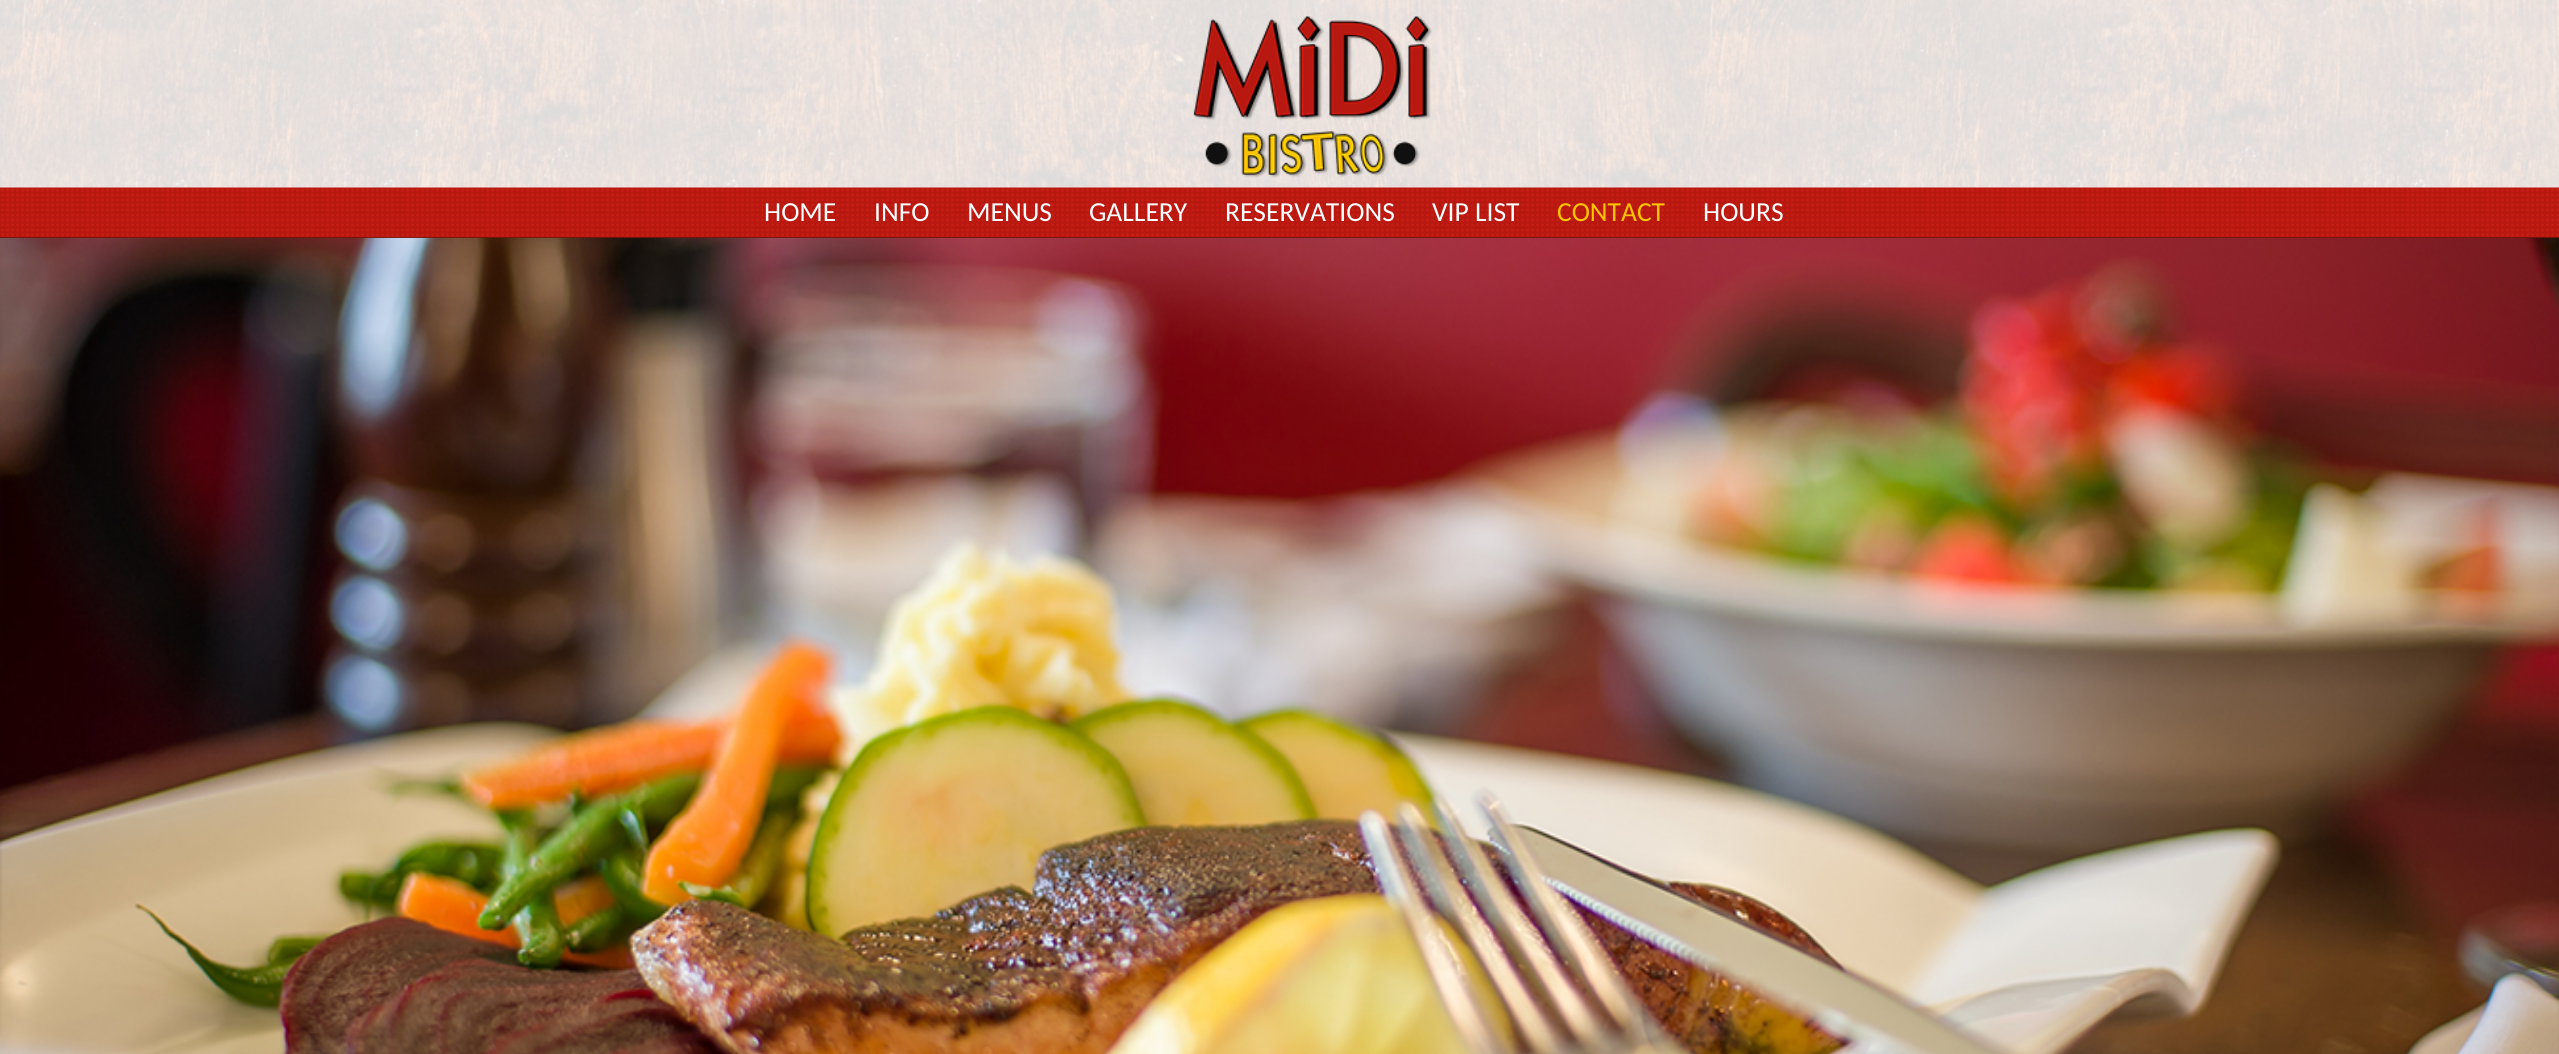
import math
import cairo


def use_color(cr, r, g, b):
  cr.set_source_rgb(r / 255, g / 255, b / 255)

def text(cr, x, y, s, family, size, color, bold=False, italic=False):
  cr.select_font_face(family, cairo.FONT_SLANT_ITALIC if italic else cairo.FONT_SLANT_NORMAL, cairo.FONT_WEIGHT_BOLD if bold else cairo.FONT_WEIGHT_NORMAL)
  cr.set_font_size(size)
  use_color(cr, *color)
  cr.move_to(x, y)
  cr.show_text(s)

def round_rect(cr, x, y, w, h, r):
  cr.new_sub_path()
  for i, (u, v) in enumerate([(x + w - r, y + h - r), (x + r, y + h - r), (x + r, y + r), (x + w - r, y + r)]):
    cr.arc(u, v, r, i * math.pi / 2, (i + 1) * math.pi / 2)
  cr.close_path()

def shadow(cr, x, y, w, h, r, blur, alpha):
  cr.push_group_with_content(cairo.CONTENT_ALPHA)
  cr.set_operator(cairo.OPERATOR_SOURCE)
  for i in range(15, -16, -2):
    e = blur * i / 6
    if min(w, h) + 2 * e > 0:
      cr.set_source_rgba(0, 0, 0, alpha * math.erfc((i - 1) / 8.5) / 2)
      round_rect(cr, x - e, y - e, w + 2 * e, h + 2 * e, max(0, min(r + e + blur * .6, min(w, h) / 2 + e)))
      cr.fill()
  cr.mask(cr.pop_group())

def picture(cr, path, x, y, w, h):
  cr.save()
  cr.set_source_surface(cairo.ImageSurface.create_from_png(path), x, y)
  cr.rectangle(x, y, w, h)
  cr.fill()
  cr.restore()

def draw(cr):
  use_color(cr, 255, 255, 255)
  cr.paint()
  picture(cr, "img_01.png", 0, 0, 2559, 238)
  cr.save()
  cr.set_fill_rule(cairo.FILL_RULE_EVEN_ODD)
  cr.new_path()
  cr.move_to(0, 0)
  cr.line_to(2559, 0)
  cr.line_to(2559, 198)
  cr.line_to(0, 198)
  cr.close_path()
  cr.move_to(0, 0)
  cr.line_to(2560, 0)
  cr.line_to(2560, 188)
  cr.line_to(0, 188)
  cr.close_path()
  cr.clip()
  use_color(cr, 0, 0, 0)
  shadow(cr, 0, 4, 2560, 187, 0, 2, 0.2)
  cr.restore()
  cr.set_source_rgba(1, 1, 1, 0.85)
  cr.rectangle(0, 0, 2559, 188)
  cr.fill()
  picture(cr, "img_02.png", 1193, 16, 239, 162)
  picture(cr, "img_04.png", 0, 237, 2559, 1)
  picture(cr, "img_05.png", 0, 237, 2559, 817)
  cr.set_source_rgba(0.118, 0.059, 0.008, 0.8)
  cr.rectangle(0, 237, 2559, 1)
  cr.fill()
  picture(cr, "img_03.png", 0, 187, 2559, 51)
  text(cr, 764, 221, "HOME", "Carlito", 27.5, (255, 255, 255))
  text(cr, 874, 221, "INFO", "Carlito", 27.5, (255, 255, 255))
  text(cr, 967, 221, "MENUS", "Carlito", 27.5, (255, 255, 255))
  text(cr, 1089, 221, "GALLERY", "Carlito", 27.5, (255, 255, 255))
  text(cr, 1225, 221, "RESERVATIONS", "Carlito", 27.5, (255, 255, 255))
  text(cr, 1432, 221, "VIP LIST", "Carlito", 27.5, (255, 255, 255))
  text(cr, 1557, 221, "CONTACT", "Carlito", 27.5, (255, 197, 1))
  text(cr, 1703, 221, "HOURS", "Carlito", 27.5, (255, 255, 255))


surface = cairo.ImageSurface(cairo.FORMAT_RGB24, 2559, 1054)
cr = cairo.Context(surface)
options = cairo.FontOptions()
options.set_hint_metrics(cairo.HINT_METRICS_OFF)
options.set_hint_style(cairo.HINT_STYLE_NONE)
cr.set_font_options(options)
cr.set_miter_limit(4)
draw(cr)
surface.write_to_png("out.png")
